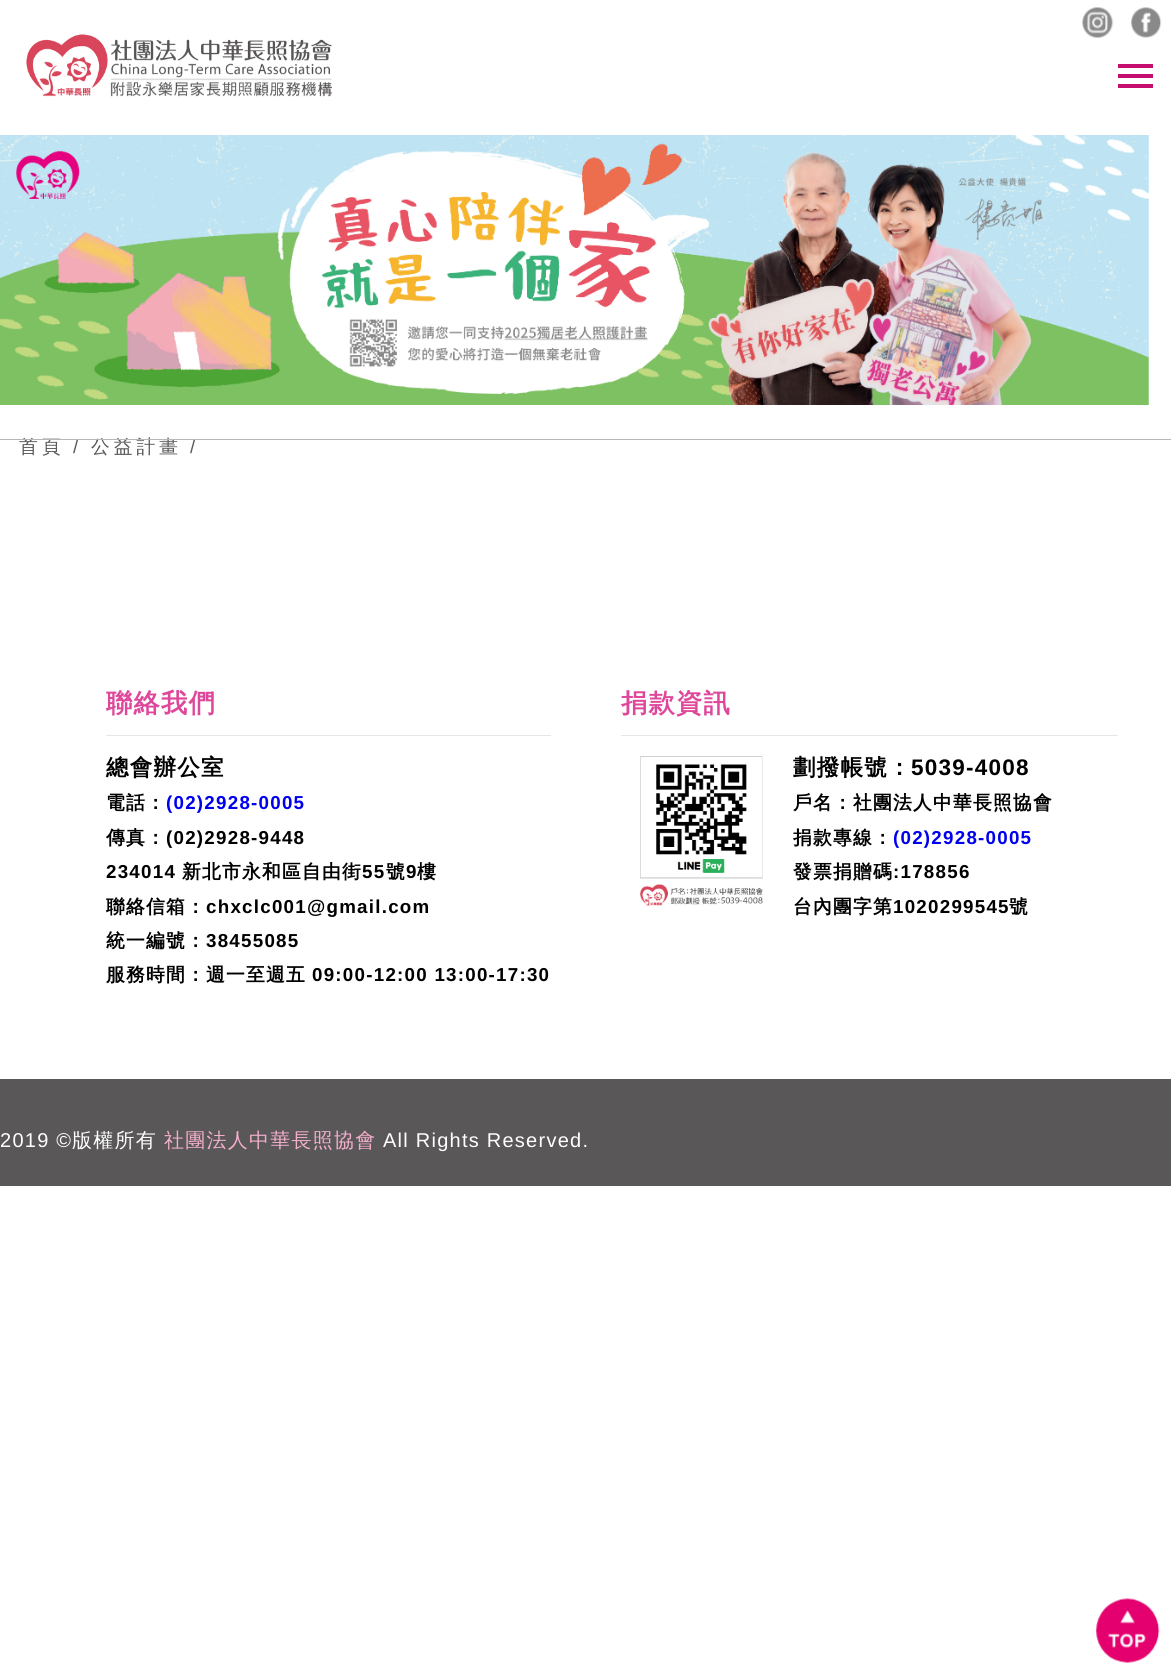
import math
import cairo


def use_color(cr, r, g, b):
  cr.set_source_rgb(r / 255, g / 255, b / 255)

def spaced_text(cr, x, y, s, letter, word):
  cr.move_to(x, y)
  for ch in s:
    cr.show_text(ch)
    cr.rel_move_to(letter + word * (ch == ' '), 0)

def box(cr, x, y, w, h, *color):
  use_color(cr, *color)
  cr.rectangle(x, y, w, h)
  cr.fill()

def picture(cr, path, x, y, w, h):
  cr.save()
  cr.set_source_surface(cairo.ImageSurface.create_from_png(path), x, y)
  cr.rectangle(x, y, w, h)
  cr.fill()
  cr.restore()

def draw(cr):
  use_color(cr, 255, 255, 255)
  cr.paint()
  picture(cr, "img_01.png", 1082, 7, 32, 31)
  picture(cr, "img_02.png", 1131, 7, 31, 31)
  picture(cr, "img_03.png", 26, 34, 306, 63)
  box(cr, 1118, 64, 35, 4, 197, 14, 110)
  box(cr, 1118, 74, 35, 4, 197, 14, 110)
  box(cr, 1118, 84, 35, 4, 197, 14, 110)
  picture(cr, "img_04.png", 0, 135, 1149, 270)
  box(cr, 106, 735, 445, 1, 230, 230, 230)
  box(cr, 621, 735, 497, 1, 230, 230, 230)
  picture(cr, "img_05.png", 640, 756, 123, 150)
  box(cr, 0, 1079, 1171, 107, 89, 87, 87)
  picture(cr, "img_06.png", 1096, 1598, 64, 65)
  cr.select_font_face("WenQuanYi Zen Hei Medium")
  cr.set_font_size(18.75)
  spaced_text(cr, 19, 453, "首頁", 4, 0)
  cr.select_font_face("Liberation Sans")
  spaced_text(cr, 73, 453, "/", 4, 0)
  cr.select_font_face("WenQuanYi Zen Hei Medium")
  spaced_text(cr, 91, 453, "公益計畫", 4, 0)
  cr.select_font_face("Liberation Sans")
  spaced_text(cr, 190, 453, "/", 4, 0)
  box(cr, 0, 439, 1171, 1, 183, 183, 183)
  cr.select_font_face("WenQuanYi Zen Hei", cairo.FONT_SLANT_NORMAL, cairo.FONT_WEIGHT_BOLD)
  cr.set_font_size(26.25)
  use_color(cr, 222, 71, 154)
  spaced_text(cr, 106, 712, "聯絡我們", 1.25, 0)
  cr.set_font_size(22.5)
  use_color(cr, 0, 0, 0)
  spaced_text(cr, 106, 775, "總會辦公室", 1.25, 0)
  cr.set_font_size(18.75)
  spaced_text(cr, 106, 809, "電話：", 1.25, 0)
  cr.select_font_face("Liberation Sans", cairo.FONT_SLANT_NORMAL, cairo.FONT_WEIGHT_BOLD)
  use_color(cr, 0, 0, 238)
  spaced_text(cr, 166, 809, "(02)2928-0005", 1.25, 0)
  cr.select_font_face("WenQuanYi Zen Hei", cairo.FONT_SLANT_NORMAL, cairo.FONT_WEIGHT_BOLD)
  use_color(cr, 0, 0, 0)
  spaced_text(cr, 106, 844, "傳真：", 1.25, 0)
  cr.select_font_face("Liberation Sans", cairo.FONT_SLANT_NORMAL, cairo.FONT_WEIGHT_BOLD)
  spaced_text(cr, 166, 844, "(02)2928-9448", 1.25, 0)
  spaced_text(cr, 106, 878, "234014", 1.25, 0)
  cr.select_font_face("WenQuanYi Zen Hei", cairo.FONT_SLANT_NORMAL, cairo.FONT_WEIGHT_BOLD)
  spaced_text(cr, 182, 878, "新北市永和區自由街", 1.25, 0)
  cr.select_font_face("Liberation Sans", cairo.FONT_SLANT_NORMAL, cairo.FONT_WEIGHT_BOLD)
  spaced_text(cr, 362, 878, "55", 1.25, 0)
  cr.select_font_face("WenQuanYi Zen Hei", cairo.FONT_SLANT_NORMAL, cairo.FONT_WEIGHT_BOLD)
  spaced_text(cr, 386, 878, "號", 1.25, 0)
  cr.select_font_face("Liberation Sans", cairo.FONT_SLANT_NORMAL, cairo.FONT_WEIGHT_BOLD)
  spaced_text(cr, 406, 878, "9", 1.25, 0)
  cr.select_font_face("WenQuanYi Zen Hei", cairo.FONT_SLANT_NORMAL, cairo.FONT_WEIGHT_BOLD)
  spaced_text(cr, 417, 878, "樓", 1.25, 0)
  spaced_text(cr, 106, 913, "聯絡信箱：", 1.25, 0)
  cr.select_font_face("Liberation Sans", cairo.FONT_SLANT_NORMAL, cairo.FONT_WEIGHT_BOLD)
  spaced_text(cr, 206, 913, "chxclc001@gmail.com", 1.25, 0)
  cr.select_font_face("WenQuanYi Zen Hei", cairo.FONT_SLANT_NORMAL, cairo.FONT_WEIGHT_BOLD)
  spaced_text(cr, 106, 947, "統一編號：", 1.25, 0)
  cr.select_font_face("Liberation Sans", cairo.FONT_SLANT_NORMAL, cairo.FONT_WEIGHT_BOLD)
  spaced_text(cr, 206, 947, "38455085", 1.25, 0)
  cr.select_font_face("WenQuanYi Zen Hei", cairo.FONT_SLANT_NORMAL, cairo.FONT_WEIGHT_BOLD)
  spaced_text(cr, 106, 981, "服務時間：週一至週五", 1.25, 0)
  cr.select_font_face("Liberation Sans", cairo.FONT_SLANT_NORMAL, cairo.FONT_WEIGHT_BOLD)
  spaced_text(cr, 312, 981, "09:00-12:00 13:00-17:30", 1.25, 0)
  cr.select_font_face("WenQuanYi Zen Hei", cairo.FONT_SLANT_NORMAL, cairo.FONT_WEIGHT_BOLD)
  cr.set_font_size(26.25)
  use_color(cr, 222, 71, 154)
  spaced_text(cr, 621, 712, "捐款資訊", 1.25, 0)
  cr.set_font_size(22.5)
  use_color(cr, 0, 0, 0)
  spaced_text(cr, 793, 775, "劃撥帳號：", 1.25, 0)
  cr.select_font_face("Liberation Sans", cairo.FONT_SLANT_NORMAL, cairo.FONT_WEIGHT_BOLD)
  spaced_text(cr, 911, 775, "5039-4008", 1.25, 0)
  cr.select_font_face("WenQuanYi Zen Hei", cairo.FONT_SLANT_NORMAL, cairo.FONT_WEIGHT_BOLD)
  cr.set_font_size(18.75)
  spaced_text(cr, 793, 809, "戶名：社團法人中華長照協會", 1.25, 0)
  spaced_text(cr, 793, 844, "捐款專線：", 1.25, 0)
  cr.select_font_face("Liberation Sans", cairo.FONT_SLANT_NORMAL, cairo.FONT_WEIGHT_BOLD)
  use_color(cr, 0, 0, 238)
  spaced_text(cr, 893, 844, "(02)2928-0005", 1.25, 0)
  cr.select_font_face("WenQuanYi Zen Hei", cairo.FONT_SLANT_NORMAL, cairo.FONT_WEIGHT_BOLD)
  use_color(cr, 0, 0, 0)
  spaced_text(cr, 793, 878, "發票捐贈碼", 1.25, 0)
  cr.select_font_face("Liberation Sans", cairo.FONT_SLANT_NORMAL, cairo.FONT_WEIGHT_BOLD)
  spaced_text(cr, 893, 878, ":178856", 1.25, 0)
  cr.select_font_face("WenQuanYi Zen Hei", cairo.FONT_SLANT_NORMAL, cairo.FONT_WEIGHT_BOLD)
  spaced_text(cr, 793, 913, "台內團字第", 1.25, 0)
  cr.select_font_face("Liberation Sans", cairo.FONT_SLANT_NORMAL, cairo.FONT_WEIGHT_BOLD)
  spaced_text(cr, 893, 913, "1020299545", 1.25, 0)
  cr.select_font_face("WenQuanYi Zen Hei", cairo.FONT_SLANT_NORMAL, cairo.FONT_WEIGHT_BOLD)
  spaced_text(cr, 1009, 913, "號", 1.25, 0)
  cr.select_font_face("Liberation Sans")
  cr.set_font_size(20)
  use_color(cr, 255, 255, 255)
  spaced_text(cr, 0, 1147, "2019 ©", 1.25, 0)
  cr.select_font_face("WenQuanYi Zen Hei Medium")
  spaced_text(cr, 72, 1147, "版權所有", 1.25, 0)
  use_color(cr, 243, 174, 204)
  spaced_text(cr, 164, 1147, "社團法人中華長照協會", 1.25, 0)
  cr.select_font_face("Liberation Sans")
  use_color(cr, 255, 255, 255)
  spaced_text(cr, 383, 1147, "All Rights Reserved.", 1.25, 0)


surface = cairo.ImageSurface(cairo.FORMAT_RGB24, 1171, 1674)
cr = cairo.Context(surface)
options = cairo.FontOptions()
options.set_hint_metrics(cairo.HINT_METRICS_OFF)
options.set_hint_style(cairo.HINT_STYLE_NONE)
cr.set_font_options(options)
cr.set_miter_limit(4)
draw(cr)
surface.write_to_png("out.png")
